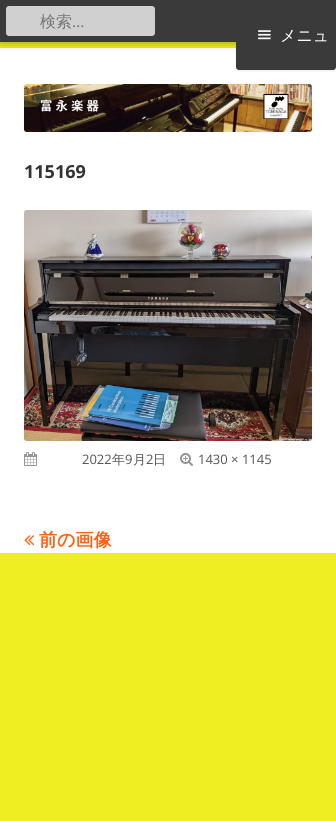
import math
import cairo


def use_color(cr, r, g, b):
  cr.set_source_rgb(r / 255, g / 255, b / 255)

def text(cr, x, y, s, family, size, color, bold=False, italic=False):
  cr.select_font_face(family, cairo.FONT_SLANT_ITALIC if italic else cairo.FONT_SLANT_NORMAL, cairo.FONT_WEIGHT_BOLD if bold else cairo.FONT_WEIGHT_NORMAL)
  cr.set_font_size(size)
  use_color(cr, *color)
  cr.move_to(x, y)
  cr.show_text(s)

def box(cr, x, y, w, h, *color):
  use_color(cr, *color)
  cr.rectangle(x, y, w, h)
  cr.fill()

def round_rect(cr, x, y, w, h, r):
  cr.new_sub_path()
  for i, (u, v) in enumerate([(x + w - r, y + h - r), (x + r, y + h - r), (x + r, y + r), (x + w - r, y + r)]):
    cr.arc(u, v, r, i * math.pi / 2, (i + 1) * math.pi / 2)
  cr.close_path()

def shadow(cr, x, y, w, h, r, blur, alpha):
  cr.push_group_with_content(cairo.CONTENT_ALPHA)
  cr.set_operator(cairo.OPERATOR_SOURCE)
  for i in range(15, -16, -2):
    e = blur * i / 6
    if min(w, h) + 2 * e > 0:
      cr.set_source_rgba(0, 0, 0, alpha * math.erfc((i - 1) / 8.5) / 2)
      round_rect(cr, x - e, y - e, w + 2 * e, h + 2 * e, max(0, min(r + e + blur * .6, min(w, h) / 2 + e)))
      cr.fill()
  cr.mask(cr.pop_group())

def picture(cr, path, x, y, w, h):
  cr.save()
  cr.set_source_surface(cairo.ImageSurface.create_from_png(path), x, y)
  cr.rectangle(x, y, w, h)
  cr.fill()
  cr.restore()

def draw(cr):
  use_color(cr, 238, 238, 34)
  cr.paint()
  box(cr, 0, 48, 336, 505, 255, 255, 255)
  use_color(cr, 0, 0, 0)
  shadow(cr, 0, 0, 336, 42, 0, 5, 0.4)
  box(cr, 0, 0, 336, 42, 58, 58, 58)
  use_color(cr, 208, 208, 208)
  round_rect(cr, 6, 6, 149, 30, 3)
  cr.fill()
  use_color(cr, 64, 64, 64)
  shadow(cr, 236, 1, 100, 70, 3, 1, 0.1)
  use_color(cr, 58, 58, 58)
  round_rect(cr, 236, 0, 100, 70, 3)
  cr.fill()
  picture(cr, "img_01.png", 24, 84, 288, 48)
  picture(cr, "img_02.png", 24, 210, 288, 231)
  picture(cr, "img_03.png", 24, 452, 13, 14)
  picture(cr, "img_04.png", 180, 453, 13, 13)
  picture(cr, "img_05.png", 24, 535, 11, 11)
  text(cr, 40, 27, "検索", "WenQuanYi Zen Hei Medium", 16, (117, 117, 117))
  text(cr, 72, 27, "…", "Open Sans", 16, (117, 117, 117))
  text(cr, 256, 41, "≡", "DejaVu Sans", 20, (255, 255, 255))
  text(cr, 280, 41, "メニュ", "WenQuanYi Zen Hei Medium", 16, (255, 255, 255))
  text(cr, 24, 178, "115169", "Open Sans", 18, (51, 51, 51), bold=True)
  text(cr, 82, 464, "2022", "Open Sans", 13, (85, 85, 85))
  text(cr, 112, 464, "年", "WenQuanYi Zen Hei Medium", 13, (85, 85, 85))
  text(cr, 125, 464, "9", "Open Sans", 13, (85, 85, 85))
  text(cr, 133, 464, "月", "WenQuanYi Zen Hei Medium", 13, (85, 85, 85))
  text(cr, 146, 464, "2", "Open Sans", 13, (85, 85, 85))
  text(cr, 153, 464, "日", "WenQuanYi Zen Hei Medium", 13, (85, 85, 85))
  text(cr, 198, 464, "1430 × 1145", "Open Sans", 13, (85, 85, 85))
  text(cr, 39, 546, "前の画像", "WenQuanYi Zen Hei", 18, (255, 97, 17), bold=True)


surface = cairo.ImageSurface(cairo.FORMAT_RGB24, 336, 821)
cr = cairo.Context(surface)
options = cairo.FontOptions()
options.set_hint_metrics(cairo.HINT_METRICS_OFF)
options.set_hint_style(cairo.HINT_STYLE_NONE)
cr.set_font_options(options)
cr.set_miter_limit(4)
draw(cr)
surface.write_to_png("out.png")
